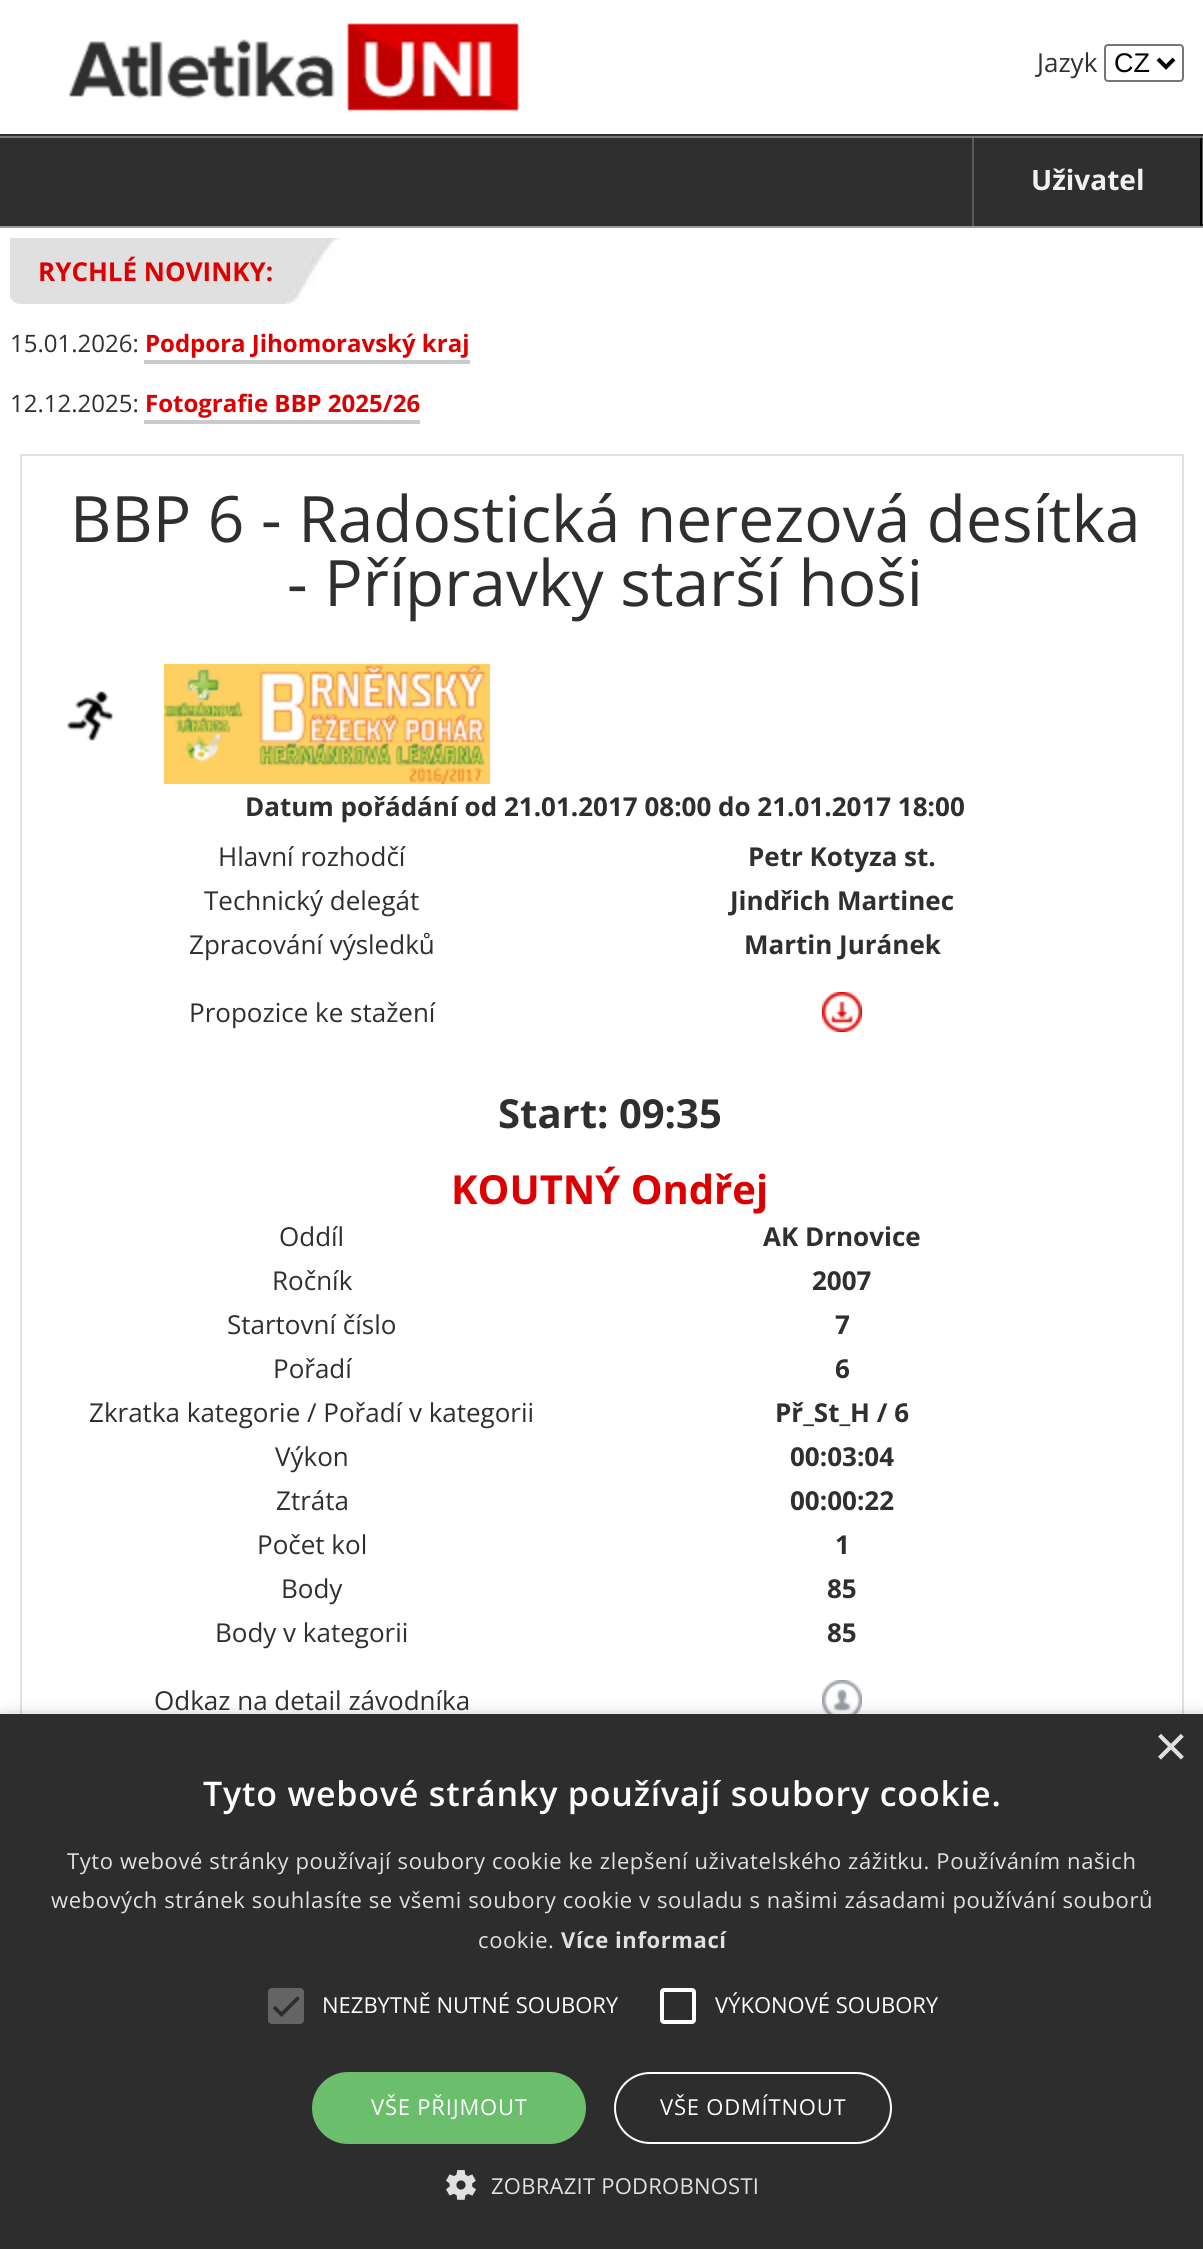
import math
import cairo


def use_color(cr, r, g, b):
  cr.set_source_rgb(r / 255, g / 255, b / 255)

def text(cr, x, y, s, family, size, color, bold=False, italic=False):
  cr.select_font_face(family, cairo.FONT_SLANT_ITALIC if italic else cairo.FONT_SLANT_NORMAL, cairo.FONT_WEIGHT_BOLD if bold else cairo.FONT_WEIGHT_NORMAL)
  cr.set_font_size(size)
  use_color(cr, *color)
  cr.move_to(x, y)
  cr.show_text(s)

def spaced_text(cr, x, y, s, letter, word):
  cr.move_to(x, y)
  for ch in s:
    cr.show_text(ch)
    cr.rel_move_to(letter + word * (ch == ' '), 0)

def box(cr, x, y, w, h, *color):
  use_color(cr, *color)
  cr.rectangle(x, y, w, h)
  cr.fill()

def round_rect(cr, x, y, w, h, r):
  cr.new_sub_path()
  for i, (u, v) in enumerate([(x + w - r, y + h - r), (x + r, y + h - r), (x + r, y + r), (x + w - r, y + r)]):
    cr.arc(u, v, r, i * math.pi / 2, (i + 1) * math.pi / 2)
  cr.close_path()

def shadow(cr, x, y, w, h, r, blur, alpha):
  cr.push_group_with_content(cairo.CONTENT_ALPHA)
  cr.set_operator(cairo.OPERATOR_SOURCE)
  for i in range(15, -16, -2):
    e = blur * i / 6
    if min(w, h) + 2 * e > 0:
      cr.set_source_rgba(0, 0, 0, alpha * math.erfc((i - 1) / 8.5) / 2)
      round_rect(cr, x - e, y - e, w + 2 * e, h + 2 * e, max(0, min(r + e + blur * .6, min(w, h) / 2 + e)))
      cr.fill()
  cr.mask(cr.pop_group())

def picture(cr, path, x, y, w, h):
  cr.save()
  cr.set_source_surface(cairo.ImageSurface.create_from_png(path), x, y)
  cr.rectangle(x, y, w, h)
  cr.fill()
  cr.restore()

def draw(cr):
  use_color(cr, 255, 255, 255)
  cr.paint()
  box(cr, 0, 134, 1203, 2, 47, 47, 47)
  picture(cr, "img_01.png", 68, 23, 451, 88)
  round_rect(cr, 1105, 45, 78, 36, 3)
  use_color(cr, 118, 118, 118)
  cr.stroke()
  cr.new_path()
  cr.move_to(1158, 59)
  cr.line_to(1166, 67)
  cr.line_to(1174, 59)
  use_color(cr, 0, 0, 0)
  cr.set_line_width(4)
  cr.stroke()
  box(cr, 0, 138, 1203, 88, 47, 47, 47)
  box(cr, 0, 136, 1203, 2, 120, 120, 120)
  box(cr, 0, 226, 1203, 2, 153, 153, 153)
  box(cr, 1202, 138, 1, 86, 91, 91, 91)
  box(cr, 1200, 138, 2, 88, 0, 0, 0)
  box(cr, 972, 138, 2, 88, 91, 91, 91)
  use_color(cr, 224, 224, 224)
  cr.new_path()
  cr.move_to(10, 238)
  cr.line_to(340, 238)
  cr.line_to(340, 304)
  cr.line_to(20, 304)
  cr.curve_to(14.5, 304, 10, 299.5, 10, 294)
  cr.close_path()
  cr.fill()
  picture(cr, "img_02.png", 286, 238, 54, 66)
  box(cr, 144, 360, 326, 4, 203, 203, 203)
  box(cr, 144, 420, 276, 4, 203, 203, 203)
  cr.rectangle(21, 455, 1162, 1602)
  use_color(cr, 225, 225, 225)
  cr.set_line_width(2)
  cr.stroke()
  picture(cr, "img_03.png", 67, 691, 46, 50)
  picture(cr, "img_04.png", 164, 664, 326, 120)
  picture(cr, "img_05.png", 822, 992, 40, 40)
  picture(cr, "img_06.png", 822, 1680, 40, 34)
  use_color(cr, 0, 0, 0)
  shadow(cr, 2, 1718, 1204, 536, 0, 8, 0.35)
  box(cr, 0, 1714, 1203, 535, 45, 45, 45)
  use_color(cr, 100, 100, 100)
  round_rect(cr, 268, 1988, 36, 36, 4)
  cr.fill()
  cr.new_path()
  cr.move_to(274, 2007)
  cr.line_to(281.5, 2014.5)
  cr.line_to(298.5, 1997.5)
  use_color(cr, 45, 45, 45)
  cr.set_line_width(3.6)
  cr.stroke()
  round_rect(cr, 662, 1990, 32, 32, 2)
  use_color(cr, 255, 255, 255)
  cr.set_line_width(4)
  cr.stroke()
  use_color(cr, 107, 190, 107)
  round_rect(cr, 312, 2072, 274, 72, 36)
  cr.fill()
  round_rect(cr, 615, 2073, 276, 70, 35)
  use_color(cr, 255, 255, 255)
  cr.set_line_width(2)
  cr.stroke()
  picture(cr, "img_07.png", 446, 2170, 30, 30)
  text(cr, 1037, 72, "Jazyk", "Open Sans", 26, (47, 47, 47))
  text(cr, 1114, 72, "CZ", "Liberation Sans", 27, (0, 0, 0))
  text(cr, 1031, 190, "Uživatel", "Open Sans", 28, (241, 241, 241), bold=True)
  text(cr, 38, 281, "RYCHLÉ NOVINKY:", "Open Sans", 26, (222, 0, 0), bold=True)
  text(cr, 10, 352, "15.01.2026:", "Open Sans", 24, (47, 47, 47))
  text(cr, 145, 352, "Podpora Jihomoravský kraj", "Open Sans", 24, (222, 0, 0), bold=True)
  text(cr, 10, 412, "12.12.2025:", "Open Sans", 24, (47, 47, 47))
  text(cr, 145, 412, "Fotografie BBP 2025/26", "Open Sans", 24, (222, 0, 0), bold=True)
  text(cr, 70, 542, "BBP 6 - Radostická nerezová desítka", "Open Sans", 64, (47, 47, 47))
  text(cr, 287, 606, "- Přípravky starší hoši", "Open Sans", 64, (47, 47, 47))
  text(cr, 245, 816, "Datum pořádání od 21.01.2017 08:00 do 21.01.2017 18:00", "Open Sans", 26, (47, 47, 47), bold=True)
  text(cr, 218, 866, "Hlavní rozhodčí", "Open Sans", 26, (47, 47, 47))
  text(cr, 748, 866, "Petr Kotyza st.", "Open Sans", 26, (47, 47, 47), bold=True)
  text(cr, 204, 910, "Technický delegát", "Open Sans", 26, (47, 47, 47))
  text(cr, 730, 910, "Jindřich Martinec", "Open Sans", 26, (47, 47, 47), bold=True)
  text(cr, 189, 954, "Zpracování výsledků", "Open Sans", 26, (47, 47, 47))
  text(cr, 744, 954, "Martin Juránek", "Open Sans", 26, (47, 47, 47), bold=True)
  text(cr, 189, 1022, "Propozice ke stažení", "Open Sans", 26, (47, 47, 47))
  text(cr, 498, 1128, "Start: 09:35", "Open Sans", 40, (47, 47, 47), bold=True)
  text(cr, 451, 1204, "KOUTNÝ Ondřej", "Open Sans", 40, (222, 0, 0), bold=True)
  text(cr, 279, 1246, "Oddíl", "Open Sans", 26, (47, 47, 47))
  text(cr, 763, 1246, "AK Drnovice", "Open Sans", 26, (47, 47, 47), bold=True)
  text(cr, 272, 1290, "Ročník", "Open Sans", 26, (47, 47, 47))
  text(cr, 812, 1290, "2007", "Open Sans", 26, (47, 47, 47), bold=True)
  text(cr, 227, 1334, "Startovní číslo", "Open Sans", 26, (47, 47, 47))
  text(cr, 835, 1334, "7", "Open Sans", 26, (47, 47, 47), bold=True)
  text(cr, 273, 1378, "Pořadí", "Open Sans", 26, (47, 47, 47))
  text(cr, 835, 1378, "6", "Open Sans", 26, (47, 47, 47), bold=True)
  text(cr, 89, 1422, "Zkratka kategorie / Pořadí v kategorii", "Open Sans", 26, (47, 47, 47))
  text(cr, 775, 1422, "Př_St_H / 6", "Open Sans", 26, (47, 47, 47), bold=True)
  text(cr, 275, 1466, "Výkon", "Open Sans", 26, (47, 47, 47))
  text(cr, 790, 1466, "00:03:04", "Open Sans", 26, (47, 47, 47), bold=True)
  text(cr, 276, 1510, "Ztráta", "Open Sans", 26, (47, 47, 47))
  text(cr, 790, 1510, "00:00:22", "Open Sans", 26, (47, 47, 47), bold=True)
  text(cr, 257, 1554, "Počet kol", "Open Sans", 26, (47, 47, 47))
  text(cr, 835, 1554, "1", "Open Sans", 26, (47, 47, 47), bold=True)
  text(cr, 281, 1598, "Body", "Open Sans", 26, (47, 47, 47))
  text(cr, 827, 1598, "85", "Open Sans", 26, (47, 47, 47), bold=True)
  text(cr, 215, 1642, "Body v kategorii", "Open Sans", 26, (47, 47, 47))
  text(cr, 827, 1642, "85", "Open Sans", 26, (47, 47, 47), bold=True)
  text(cr, 154, 1710, "Odkaz na detail závodníka", "Open Sans", 26, (47, 47, 47))
  text(cr, 1154, 1766, "×", "Liberation Sans", 58, (224, 224, 224))
  cr.select_font_face("Open Sans SemiBold")
  cr.set_font_size(34)
  use_color(cr, 255, 255, 255)
  spaced_text(cr, 203, 1806, "Tyto webové stránky používají soubory cookie.", 0.8, 0)
  cr.select_font_face("Open Sans")
  cr.set_font_size(22)
  use_color(cr, 224, 224, 224)
  spaced_text(cr, 67, 1869, "Tyto webové stránky používají soubory cookie ke zlepšení uživatelského zážitku. Používáním našich", 0.6, 0)
  spaced_text(cr, 51, 1908, "webových stránek souhlasíte se všemi soubory cookie v souladu s našimi zásadami používání souborů", 0.6, 0)
  spaced_text(cr, 478, 1948, "cookie.", 0.6, 0)
  cr.select_font_face("Open Sans", cairo.FONT_SLANT_NORMAL, cairo.FONT_WEIGHT_BOLD)
  spaced_text(cr, 561, 1948, "Více informací", 0.6, 0)
  text(cr, 322, 2013, "NEZBYTNĚ NUTNÉ SOUBORY", "Open Sans", 22, (255, 255, 255))
  text(cr, 715, 2013, "VÝKONOVÉ SOUBORY", "Open Sans", 22, (255, 255, 255))
  spaced_text(cr, 371, 2115, "VŠE PŘIJMOUT", 0.8, 0)
  spaced_text(cr, 660, 2115, "VŠE ODMÍTNOUT", 0.8, 0)
  use_color(cr, 224, 224, 224)
  spaced_text(cr, 491, 2194, "ZOBRAZIT PODROBNOSTI", 0.25, 0)


surface = cairo.ImageSurface(cairo.FORMAT_RGB24, 1203, 2249)
cr = cairo.Context(surface)
options = cairo.FontOptions()
options.set_hint_metrics(cairo.HINT_METRICS_OFF)
options.set_hint_style(cairo.HINT_STYLE_NONE)
cr.set_font_options(options)
cr.set_miter_limit(4)
draw(cr)
surface.write_to_png("out.png")
